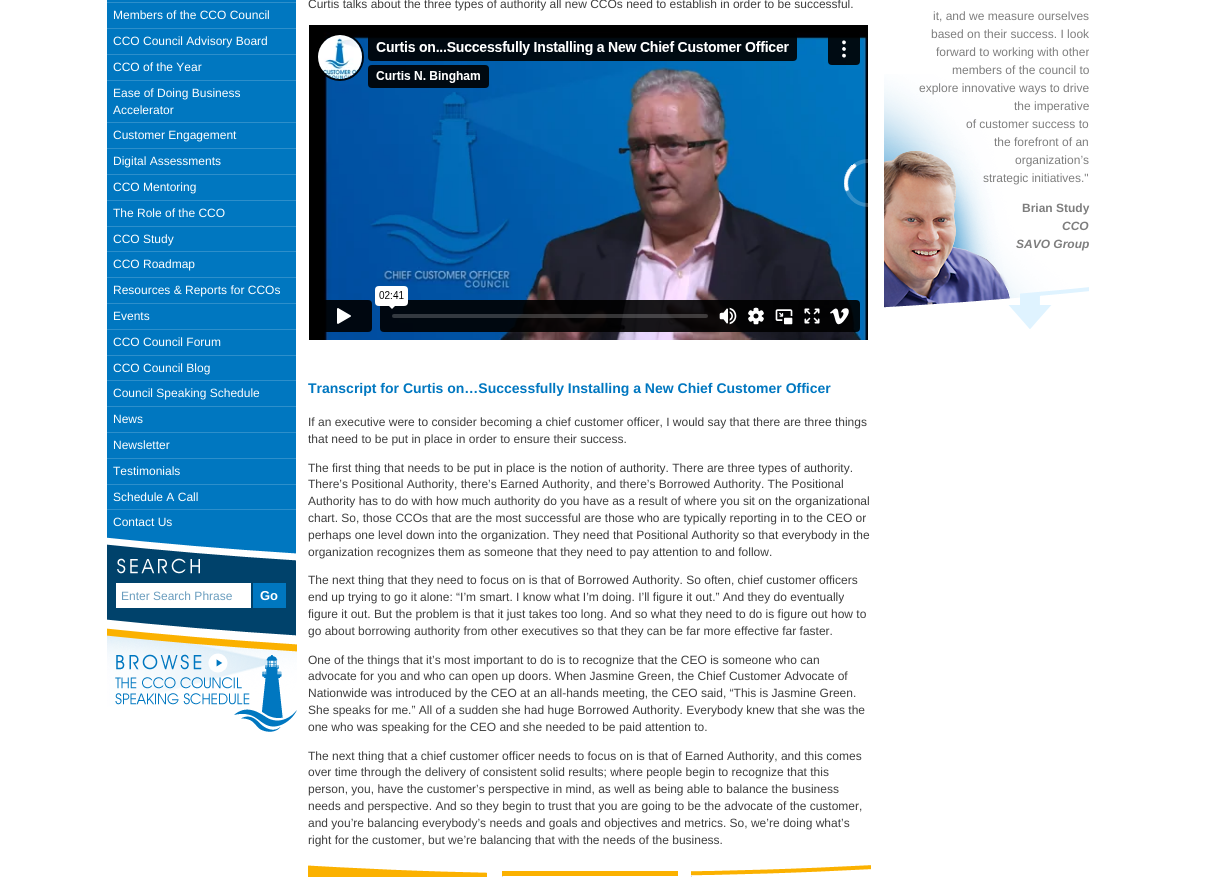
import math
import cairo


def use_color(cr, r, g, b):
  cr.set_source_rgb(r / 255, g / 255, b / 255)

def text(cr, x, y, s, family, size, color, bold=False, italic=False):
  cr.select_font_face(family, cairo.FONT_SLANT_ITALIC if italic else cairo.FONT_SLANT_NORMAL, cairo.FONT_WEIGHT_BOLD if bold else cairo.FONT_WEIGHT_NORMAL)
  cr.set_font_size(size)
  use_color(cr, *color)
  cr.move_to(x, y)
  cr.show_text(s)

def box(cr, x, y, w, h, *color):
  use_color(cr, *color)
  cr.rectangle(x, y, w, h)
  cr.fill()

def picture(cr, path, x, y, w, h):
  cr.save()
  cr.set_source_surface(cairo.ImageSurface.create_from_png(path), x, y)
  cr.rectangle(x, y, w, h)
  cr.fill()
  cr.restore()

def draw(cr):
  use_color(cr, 255, 255, 255)
  cr.paint()
  picture(cr, "img_01.png", 107, 535, 189, 19)
  box(cr, 107, 0, 189, 2, 0, 119, 192)
  box(cr, 107, 3, 189, 25, 0, 119, 192)
  box(cr, 107, 2, 189, 1, 45, 143, 203)
  box(cr, 107, 29, 189, 25, 0, 119, 192)
  box(cr, 107, 28, 189, 1, 45, 143, 203)
  box(cr, 107, 55, 189, 25, 0, 119, 192)
  box(cr, 107, 54, 189, 1, 45, 143, 203)
  box(cr, 107, 81, 189, 41, 0, 119, 192)
  box(cr, 107, 80, 189, 1, 45, 143, 203)
  box(cr, 107, 123, 189, 25, 0, 119, 192)
  box(cr, 107, 122, 189, 1, 45, 143, 203)
  box(cr, 107, 149, 189, 25, 0, 119, 192)
  box(cr, 107, 148, 189, 1, 45, 143, 203)
  box(cr, 107, 175, 189, 25, 0, 119, 192)
  box(cr, 107, 174, 189, 1, 45, 143, 203)
  box(cr, 107, 201, 189, 25, 0, 119, 192)
  box(cr, 107, 200, 189, 1, 45, 143, 203)
  box(cr, 107, 227, 189, 24, 0, 119, 192)
  box(cr, 107, 226, 189, 1, 45, 143, 203)
  box(cr, 107, 252, 189, 25, 0, 119, 192)
  box(cr, 107, 251, 189, 1, 45, 143, 203)
  box(cr, 107, 278, 189, 25, 0, 119, 192)
  box(cr, 107, 277, 189, 1, 45, 143, 203)
  box(cr, 107, 304, 189, 25, 0, 119, 192)
  box(cr, 107, 303, 189, 1, 45, 143, 203)
  box(cr, 107, 330, 189, 25, 0, 119, 192)
  box(cr, 107, 329, 189, 1, 45, 143, 203)
  box(cr, 107, 356, 189, 24, 0, 119, 192)
  box(cr, 107, 355, 189, 1, 45, 143, 203)
  box(cr, 107, 381, 189, 25, 0, 119, 192)
  box(cr, 107, 380, 189, 1, 45, 143, 203)
  box(cr, 107, 407, 189, 25, 0, 119, 192)
  box(cr, 107, 406, 189, 1, 45, 143, 203)
  box(cr, 107, 433, 189, 25, 0, 119, 192)
  box(cr, 107, 432, 189, 1, 45, 143, 203)
  box(cr, 107, 459, 189, 25, 0, 119, 192)
  box(cr, 107, 458, 189, 1, 45, 143, 203)
  box(cr, 107, 485, 189, 24, 0, 119, 192)
  box(cr, 107, 484, 189, 1, 45, 143, 203)
  box(cr, 107, 510, 189, 25, 0, 119, 192)
  box(cr, 107, 509, 189, 1, 45, 143, 203)
  picture(cr, "img_02.png", 107, 544, 189, 30)
  box(cr, 107, 574, 189, 43, 0, 66, 107)
  box(cr, 116, 583, 135, 25, 255, 255, 255)
  box(cr, 253, 583, 33, 25, 0, 119, 192)
  picture(cr, "img_03.png", 107, 617, 189, 19)
  picture(cr, "img_04.png", 107, 628, 190, 104)
  picture(cr, "img_05.png", 309, 25, 559, 315)
  picture(cr, "img_06.png", 308, 865, 179, 12)
  box(cr, 502, 871, 176, 5, 251, 177, 0)
  box(cr, 502, 876, 1, 1, 219, 219, 219)
  picture(cr, "img_07.png", 691, 865, 180, 11)
  box(cr, 691, 876, 1, 1, 219, 219, 219)
  picture(cr, "img_08.png", 884, 74, 205, 255)
  text(cr, 113, 19, "Members of the CCO Council", "Liberation Sans", 12, (255, 255, 255))
  text(cr, 113, 45, "CCO Council Advisory Board", "Liberation Sans", 12, (255, 255, 255))
  text(cr, 113, 71, "CCO of the Year", "Liberation Sans", 12, (255, 255, 255))
  text(cr, 113, 97, "Ease of Doing Business", "Liberation Sans", 12, (255, 255, 255))
  text(cr, 113, 114, "Accelerator", "Liberation Sans", 12, (255, 255, 255))
  text(cr, 113, 139, "Customer Engagement", "Liberation Sans", 12, (255, 255, 255))
  text(cr, 113, 165, "Digital Assessments", "Liberation Sans", 12, (255, 255, 255))
  text(cr, 113, 191, "CCO Mentoring", "Liberation Sans", 12, (255, 255, 255))
  text(cr, 113, 217, "The Role of the CCO", "Liberation Sans", 12, (255, 255, 255))
  text(cr, 113, 243, "CCO Study", "Liberation Sans", 12, (255, 255, 255))
  text(cr, 113, 268, "CCO Roadmap", "Liberation Sans", 12, (255, 255, 255))
  text(cr, 113, 294, "Resources & Reports for CCOs", "Liberation Sans", 12, (255, 255, 255))
  text(cr, 113, 320, "Events", "Liberation Sans", 12, (255, 255, 255))
  text(cr, 113, 346, "CCO Council Forum", "Liberation Sans", 12, (255, 255, 255))
  text(cr, 113, 372, "CCO Council Blog", "Liberation Sans", 12, (255, 255, 255))
  text(cr, 113, 397, "Council Speaking Schedule", "Liberation Sans", 12, (255, 255, 255))
  text(cr, 113, 423, "News", "Liberation Sans", 12, (255, 255, 255))
  text(cr, 113, 449, "Newsletter", "Liberation Sans", 12, (255, 255, 255))
  text(cr, 113, 475, "Testimonials", "Liberation Sans", 12, (255, 255, 255))
  text(cr, 113, 501, "Schedule A Call", "Liberation Sans", 12, (255, 255, 255))
  text(cr, 113, 526, "Contact Us", "Liberation Sans", 12, (255, 255, 255))
  text(cr, 121, 600, "Enter Search Phrase", "Liberation Sans", 12, (106, 157, 190))
  text(cr, 260, 600, "Go", "Liberation Sans", 13, (255, 255, 255), bold=True)
  text(cr, 308, 8, "Curtis talks about the three types of authority all new CCOs need to establish in order to be successful.", "Liberation Sans", 12, (62, 62, 62))
  text(cr, 308, 393, "Transcript for Curtis on…Successfully Installing a New Chief Customer Officer", "Liberation Sans", 14, (0, 119, 192), bold=True)
  text(cr, 308, 426, "If an executive were to consider becoming a chief customer officer, I would say that there are three things", "Liberation Sans", 12, (62, 62, 62))
  text(cr, 308, 443, "that need to be put in place in order to ensure their success.", "Liberation Sans", 12, (62, 62, 62))
  text(cr, 308, 472, "The first thing that needs to be put in place is the notion of authority. There are three types of authority.", "Liberation Sans", 12, (62, 62, 62))
  text(cr, 308, 488, "There’s Positional Authority, there’s Earned Authority, and there’s Borrowed Authority. The Positional", "Liberation Sans", 12, (62, 62, 62))
  text(cr, 308, 505, "Authority has to do with how much authority do you have as a result of where you sit on the organizational", "Liberation Sans", 12, (62, 62, 62))
  text(cr, 308, 522, "chart. So, those CCOs that are the most successful are those who are typically reporting in to the CEO or", "Liberation Sans", 12, (62, 62, 62))
  text(cr, 308, 539, "perhaps one level down into the organization. They need that Positional Authority so that everybody in the", "Liberation Sans", 12, (62, 62, 62))
  text(cr, 308, 556, "organization recognizes them as someone that they need to pay attention to and follow.", "Liberation Sans", 12, (62, 62, 62))
  text(cr, 308, 584, "The next thing that they need to focus on is that of Borrowed Authority. So often, chief customer officers", "Liberation Sans", 12, (62, 62, 62))
  text(cr, 308, 601, "end up trying to go it alone: “I’m smart. I know what I’m doing. I’ll figure it out.” And they do eventually", "Liberation Sans", 12, (62, 62, 62))
  text(cr, 308, 618, "figure it out. But the problem is that it just takes too long. And so what they need to do is figure out how to", "Liberation Sans", 12, (62, 62, 62))
  text(cr, 308, 635, "go about borrowing authority from other executives so that they can be far more effective far faster.", "Liberation Sans", 12, (62, 62, 62))
  text(cr, 308, 664, "One of the things that it’s most important to do is to recognize that the CEO is someone who can", "Liberation Sans", 12, (62, 62, 62))
  text(cr, 308, 680, "advocate for you and who can open up doors. When Jasmine Green, the Chief Customer Advocate of", "Liberation Sans", 12, (62, 62, 62))
  text(cr, 308, 697, "Nationwide was introduced by the CEO at an all-hands meeting, the CEO said, “This is Jasmine Green.", "Liberation Sans", 12, (62, 62, 62))
  text(cr, 308, 714, "She speaks for me.” All of a sudden she had huge Borrowed Authority. Everybody knew that she was the", "Liberation Sans", 12, (62, 62, 62))
  text(cr, 308, 731, "one who was speaking for the CEO and she needed to be paid attention to.", "Liberation Sans", 12, (62, 62, 62))
  text(cr, 308, 760, "The next thing that a chief customer officer needs to focus on is that of Earned Authority, and this comes", "Liberation Sans", 12, (62, 62, 62))
  text(cr, 308, 776, "over time through the delivery of consistent solid results; where people begin to recognize that this", "Liberation Sans", 12, (62, 62, 62))
  text(cr, 308, 793, "person, you, have the customer’s perspective in mind, as well as being able to balance the business", "Liberation Sans", 12, (62, 62, 62))
  text(cr, 308, 810, "needs and perspective. And so they begin to trust that you are going to be the advocate of the customer,", "Liberation Sans", 12, (62, 62, 62))
  text(cr, 308, 827, "and you’re balancing everybody’s needs and goals and objectives and metrics. So, we’re doing what’s", "Liberation Sans", 12, (62, 62, 62))
  text(cr, 308, 844, "right for the customer, but we’re balancing that with the needs of the business.", "Liberation Sans", 12, (62, 62, 62))
  text(cr, 933, 20, "it, and we measure ourselves", "Liberation Sans", 12, (126, 126, 126))
  text(cr, 931, 38, "based on their success. I look", "Liberation Sans", 12, (126, 126, 126))
  text(cr, 936, 56, "forward to working with other", "Liberation Sans", 12, (126, 126, 126))
  text(cr, 952, 74, "members of the council to", "Liberation Sans", 12, (126, 126, 126))
  text(cr, 919, 92, "explore innovative ways to drive", "Liberation Sans", 12, (126, 126, 126))
  text(cr, 1014, 110, "the imperative", "Liberation Sans", 12, (126, 126, 126))
  text(cr, 966, 128, "of customer success to", "Liberation Sans", 12, (126, 126, 126))
  text(cr, 994, 146, "the forefront of an", "Liberation Sans", 12, (126, 126, 126))
  text(cr, 1015, 164, "organization’s", "Liberation Sans", 12, (126, 126, 126))
  text(cr, 983, 182, "strategic initiatives.\"", "Liberation Sans", 12, (126, 126, 126))
  text(cr, 1022, 212, "Brian Study", "Liberation Sans", 12, (126, 126, 126), bold=True)
  text(cr, 1062, 230, "CCO", "Liberation Sans", 12, (126, 126, 126), bold=True, italic=True)
  text(cr, 1016, 248, "SAVO Group", "Liberation Sans", 12, (126, 126, 126), bold=True, italic=True)


surface = cairo.ImageSurface(cairo.FORMAT_RGB24, 1209, 877)
cr = cairo.Context(surface)
options = cairo.FontOptions()
options.set_hint_metrics(cairo.HINT_METRICS_OFF)
options.set_hint_style(cairo.HINT_STYLE_NONE)
cr.set_font_options(options)
cr.set_miter_limit(4)
draw(cr)
surface.write_to_png("out.png")
